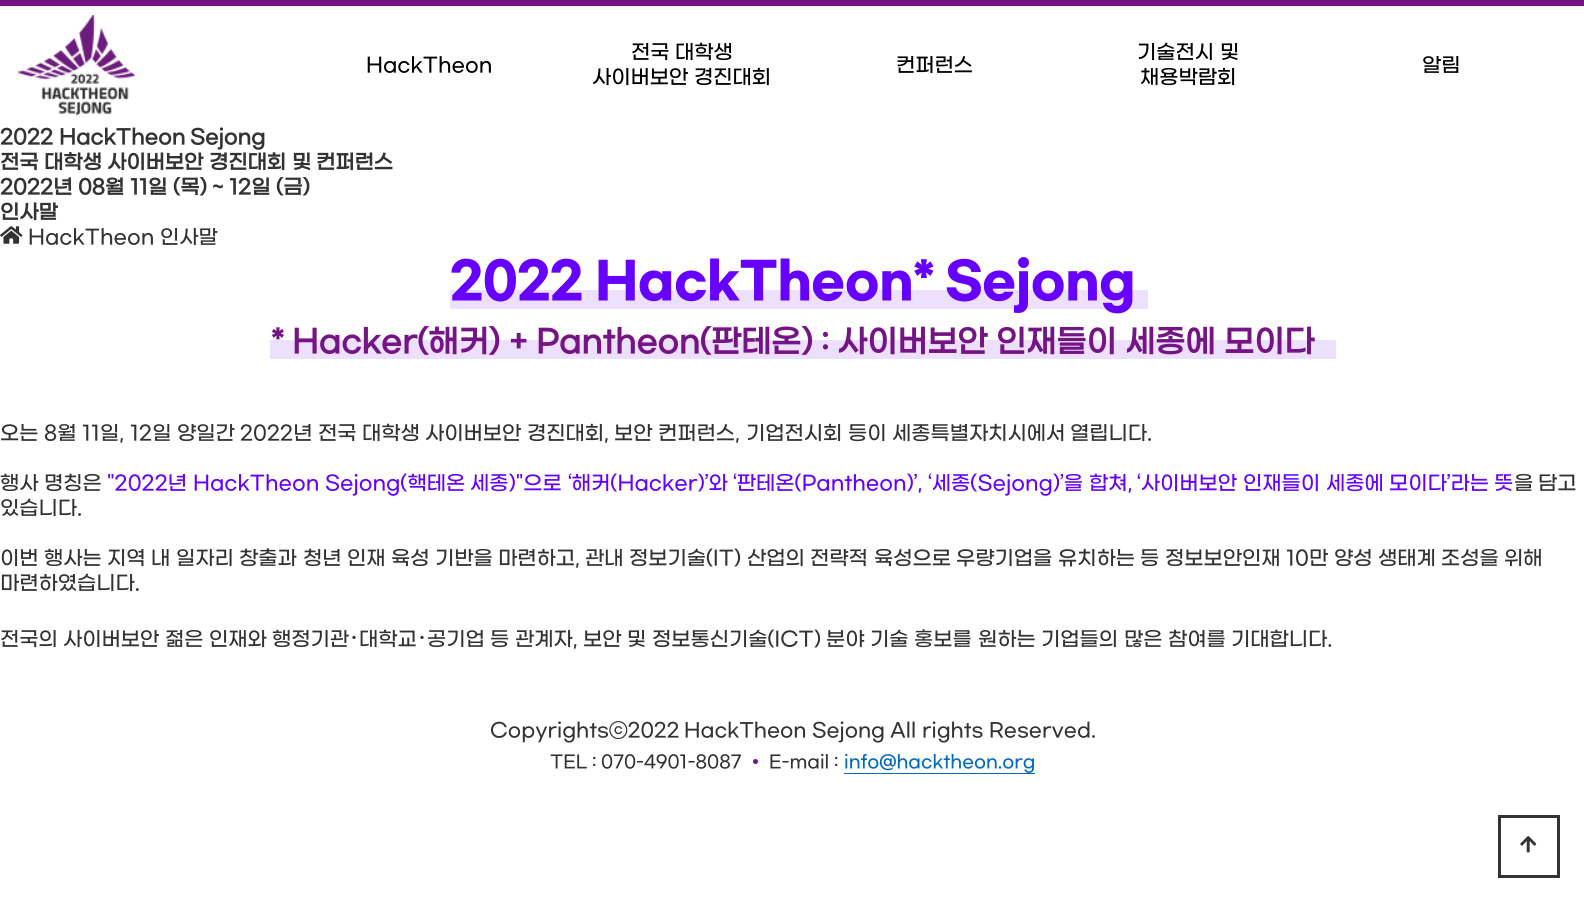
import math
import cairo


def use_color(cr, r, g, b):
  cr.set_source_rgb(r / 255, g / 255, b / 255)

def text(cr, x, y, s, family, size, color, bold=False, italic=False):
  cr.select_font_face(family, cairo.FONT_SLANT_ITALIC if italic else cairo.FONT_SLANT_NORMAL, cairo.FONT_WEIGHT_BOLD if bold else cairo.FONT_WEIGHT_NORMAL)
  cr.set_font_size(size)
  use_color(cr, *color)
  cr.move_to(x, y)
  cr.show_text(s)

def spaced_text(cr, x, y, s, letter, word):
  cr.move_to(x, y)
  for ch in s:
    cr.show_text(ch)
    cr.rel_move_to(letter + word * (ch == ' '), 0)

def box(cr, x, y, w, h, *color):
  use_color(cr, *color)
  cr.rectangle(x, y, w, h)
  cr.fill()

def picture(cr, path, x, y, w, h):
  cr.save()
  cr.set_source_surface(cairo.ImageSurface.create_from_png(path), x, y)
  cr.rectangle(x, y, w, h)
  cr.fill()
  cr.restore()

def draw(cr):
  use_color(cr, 255, 255, 255)
  cr.paint()
  box(cr, 0, 0, 1584, 6, 117, 20, 133)
  picture(cr, "img_01.png", 17, 15, 118, 101)
  picture(cr, "img_02.png", 0, 226, 23, 18)
  box(cr, 450, 290, 698, 19, 237, 224, 255)
  box(cr, 270, 340, 1066, 19, 237, 224, 255)
  use_color(cr, 117, 20, 133)
  cr.arc(755.5, 761.5, 2.5, 0, 2 * math.pi)
  cr.fill()
  box(cr, 844, 773, 191, 1, 0, 104, 191)
  cr.rectangle(1499.5, 816.5, 59, 60)
  use_color(cr, 51, 51, 51)
  cr.set_line_width(3)
  cr.stroke()
  picture(cr, "img_03.png", 1520, 836, 17, 17)
  text(cr, 366, 71, "HackTheon", "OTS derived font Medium", 20, (0, 0, 0))
  text(cr, 631, 58, "전국", "OTS derived font Medium", 20, (0, 0, 0))
  text(cr, 675, 58, "대학생", "OTS derived font Medium", 20, (0, 0, 0))
  text(cr, 592, 83, "사이버보안", "OTS derived font Medium", 20, (0, 0, 0))
  text(cr, 694, 83, "경진대회", "OTS derived font Medium", 20, (0, 0, 0))
  text(cr, 896, 71, "컨퍼런스", "OTS derived font Medium", 20, (0, 0, 0))
  text(cr, 1137, 58, "기술전시", "OTS derived font Medium", 20, (0, 0, 0))
  text(cr, 1220, 58, "및", "OTS derived font Medium", 20, (0, 0, 0))
  text(cr, 1140, 83, "채용박람회", "OTS derived font Medium", 20, (0, 0, 0))
  text(cr, 1422, 71, "알림", "OTS derived font Medium", 20, (0, 0, 0))
  text(cr, 0, 143, "2022", "OTS derived font", 20, (51, 51, 51), bold=True)
  text(cr, 59, 143, "HackTheon", "OTS derived font", 20, (51, 51, 51), bold=True)
  text(cr, 190, 143, "Sejong", "OTS derived font", 20, (51, 51, 51), bold=True)
  text(cr, 0, 168, "전국", "OTS derived font", 20, (51, 51, 51), bold=True)
  text(cr, 44, 168, "대학생", "OTS derived font", 20, (51, 51, 51), bold=True)
  text(cr, 107, 168, "사이버보안", "OTS derived font", 20, (51, 51, 51), bold=True)
  text(cr, 209, 168, "경진대회", "OTS derived font", 20, (51, 51, 51), bold=True)
  text(cr, 292, 168, "및", "OTS derived font", 20, (51, 51, 51), bold=True)
  text(cr, 316, 168, "컨퍼런스", "OTS derived font", 20, (51, 51, 51), bold=True)
  text(cr, 0, 193, "2022년", "OTS derived font", 20, (51, 51, 51), bold=True)
  text(cr, 78, 193, "08월", "OTS derived font", 20, (51, 51, 51), bold=True)
  text(cr, 130, 193, "11일", "OTS derived font", 20, (51, 51, 51), bold=True)
  text(cr, 173, 193, "(목)", "OTS derived font", 20, (51, 51, 51), bold=True)
  text(cr, 212, 193, "~", "OTS derived font", 20, (51, 51, 51), bold=True)
  text(cr, 229, 193, "12일", "OTS derived font", 20, (51, 51, 51), bold=True)
  text(cr, 276, 193, "(금)", "OTS derived font", 20, (51, 51, 51), bold=True)
  text(cr, 0, 218, "인사말", "OTS derived font", 20, (51, 51, 51), bold=True)
  text(cr, 28, 243, "HackTheon", "OTS derived font Medium", 20, (51, 51, 51))
  text(cr, 160, 243, "인사말", "OTS derived font Medium", 20, (51, 51, 51))
  cr.select_font_face("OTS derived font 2", cairo.FONT_SLANT_NORMAL, cairo.FONT_WEIGHT_BOLD)
  cr.set_font_size(50)
  use_color(cr, 102, 0, 255)
  spaced_text(cr, 450, 296, "2022", -0.6, 0)
  spaced_text(cr, 595, 296, "HackTheon*", -0.6, 0)
  spaced_text(cr, 945, 296, "Sejong", -0.6, 0)
  text(cr, 271, 351, "*", "OTS derived font", 31.25, (117, 20, 133), bold=True)
  text(cr, 292, 351, "Hacker(해커)", "OTS derived font", 31.25, (117, 20, 133), bold=True)
  text(cr, 509, 351, "+", "OTS derived font", 31.25, (117, 20, 133), bold=True)
  text(cr, 536, 351, "Pantheon(판테온)", "OTS derived font", 31.25, (117, 20, 133), bold=True)
  text(cr, 821, 351, ":", "OTS derived font", 31.25, (117, 20, 133), bold=True)
  text(cr, 837, 351, "사이버보안", "OTS derived font", 31.25, (117, 20, 133), bold=True)
  text(cr, 996, 351, "인재들이", "OTS derived font", 31.25, (117, 20, 133), bold=True)
  text(cr, 1125, 351, "세종에", "OTS derived font", 31.25, (117, 20, 133), bold=True)
  text(cr, 1224, 351, "모이다", "OTS derived font", 31.25, (117, 20, 133), bold=True)
  text(cr, 0, 439, "오는", "OTS derived font Medium", 20, (51, 51, 51))
  text(cr, 44, 439, "8월", "OTS derived font Medium", 20, (51, 51, 51))
  text(cr, 82, 439, "11일,", "OTS derived font Medium", 20, (51, 51, 51))
  text(cr, 130, 439, "12일", "OTS derived font Medium", 20, (51, 51, 51))
  text(cr, 177, 439, "양일간", "OTS derived font Medium", 20, (51, 51, 51))
  text(cr, 240, 439, "2022년", "OTS derived font Medium", 20, (51, 51, 51))
  text(cr, 318, 439, "전국", "OTS derived font Medium", 20, (51, 51, 51))
  text(cr, 362, 439, "대학생", "OTS derived font Medium", 20, (51, 51, 51))
  text(cr, 425, 439, "사이버보안", "OTS derived font Medium", 20, (51, 51, 51))
  text(cr, 527, 439, "경진대회,", "OTS derived font Medium", 20, (51, 51, 51))
  text(cr, 614, 439, "보안", "OTS derived font Medium", 20, (51, 51, 51))
  text(cr, 658, 439, "컨퍼런스,", "OTS derived font Medium", 20, (51, 51, 51))
  text(cr, 746, 439, "기업전시회", "OTS derived font Medium", 20, (51, 51, 51))
  text(cr, 848, 439, "등이", "OTS derived font Medium", 20, (51, 51, 51))
  text(cr, 892, 439, "세종특별자치시에서", "OTS derived font Medium", 20, (51, 51, 51))
  text(cr, 1070, 439, "열립니다.", "OTS derived font Medium", 20, (51, 51, 51))
  text(cr, 0, 489, "행사", "OTS derived font Medium", 20, (51, 51, 51))
  text(cr, 44, 489, "명칭은", "OTS derived font Medium", 20, (51, 51, 51))
  text(cr, 107, 489, "\"2022년", "OTS derived font Medium", 20, (102, 0, 255))
  text(cr, 193, 489, "HackTheon", "OTS derived font Medium", 20, (102, 0, 255))
  text(cr, 325, 489, "Sejong(핵테온", "OTS derived font Medium", 20, (102, 0, 255))
  text(cr, 470, 489, "세종)\"으로", "OTS derived font Medium", 20, (102, 0, 255))
  text(cr, 568, 489, "‘해커(Hacker)’와", "OTS derived font Medium", 20, (102, 0, 255))
  text(cr, 733, 489, "‘판테온(Pantheon)’,", "OTS derived font Medium", 20, (102, 0, 255))
  text(cr, 928, 489, "‘세종(Sejong)’을", "OTS derived font Medium", 20, (102, 0, 255))
  text(cr, 1089, 489, "합쳐,", "OTS derived font Medium", 20, (102, 0, 255))
  text(cr, 1137, 489, "‘사이버보안", "OTS derived font Medium", 20, (102, 0, 255))
  text(cr, 1243, 489, "인재들이", "OTS derived font Medium", 20, (102, 0, 255))
  text(cr, 1326, 489, "세종에", "OTS derived font Medium", 20, (102, 0, 255))
  text(cr, 1389, 489, "모이다’라는", "OTS derived font Medium", 20, (102, 0, 255))
  text(cr, 1494, 489, "뜻", "OTS derived font Medium", 20, (102, 0, 255))
  text(cr, 1514, 489, "을", "OTS derived font Medium", 20, (51, 51, 51))
  text(cr, 1538, 489, "담고", "OTS derived font Medium", 20, (51, 51, 51))
  text(cr, 0, 514, "있습니다.", "OTS derived font Medium", 20, (51, 51, 51))
  text(cr, 0, 564, "이번", "OTS derived font Medium", 20, (51, 51, 51))
  text(cr, 44, 564, "행사는", "OTS derived font Medium", 20, (51, 51, 51))
  text(cr, 107, 564, "지역", "OTS derived font Medium", 20, (51, 51, 51))
  text(cr, 151, 564, "내", "OTS derived font Medium", 20, (51, 51, 51))
  text(cr, 176, 564, "일자리", "OTS derived font Medium", 20, (51, 51, 51))
  text(cr, 239, 564, "창출과", "OTS derived font Medium", 20, (51, 51, 51))
  text(cr, 303, 564, "청년", "OTS derived font Medium", 20, (51, 51, 51))
  text(cr, 347, 564, "인재", "OTS derived font Medium", 20, (51, 51, 51))
  text(cr, 391, 564, "육성", "OTS derived font Medium", 20, (51, 51, 51))
  text(cr, 435, 564, "기반을", "OTS derived font Medium", 20, (51, 51, 51))
  text(cr, 498, 564, "마련하고,", "OTS derived font Medium", 20, (51, 51, 51))
  text(cr, 585, 564, "관내", "OTS derived font Medium", 20, (51, 51, 51))
  text(cr, 629, 564, "정보기술(IT)", "OTS derived font Medium", 20, (51, 51, 51))
  text(cr, 747, 564, "산업의", "OTS derived font Medium", 20, (51, 51, 51))
  text(cr, 810, 564, "전략적", "OTS derived font Medium", 20, (51, 51, 51))
  text(cr, 874, 564, "육성으로", "OTS derived font Medium", 20, (51, 51, 51))
  text(cr, 956, 564, "우량기업을", "OTS derived font Medium", 20, (51, 51, 51))
  text(cr, 1058, 564, "유치하는", "OTS derived font Medium", 20, (51, 51, 51))
  text(cr, 1140, 564, "등", "OTS derived font Medium", 20, (51, 51, 51))
  text(cr, 1165, 564, "정보보안인재", "OTS derived font Medium", 20, (51, 51, 51))
  text(cr, 1286, 564, "10만", "OTS derived font Medium", 20, (51, 51, 51))
  text(cr, 1334, 564, "양성", "OTS derived font Medium", 20, (51, 51, 51))
  text(cr, 1378, 564, "생태계", "OTS derived font Medium", 20, (51, 51, 51))
  text(cr, 1441, 564, "조성을", "OTS derived font Medium", 20, (51, 51, 51))
  text(cr, 1504, 564, "위해", "OTS derived font Medium", 20, (51, 51, 51))
  text(cr, 0, 589, "마련하였습니다.", "OTS derived font Medium", 20, (51, 51, 51))
  text(cr, 0, 645, "전국의", "OTS derived font Medium", 20, (51, 51, 51))
  text(cr, 63, 645, "사이버보안", "OTS derived font Medium", 20, (51, 51, 51))
  text(cr, 165, 645, "젊은", "OTS derived font Medium", 20, (51, 51, 51))
  text(cr, 209, 645, "인재와", "OTS derived font Medium", 20, (51, 51, 51))
  text(cr, 272, 645, "행정기관", "OTS derived font Medium", 20, (51, 51, 51))
  text(cr, 349, 645, "･", "Noto Sans CJK KR", 20, (51, 51, 51))
  text(cr, 359, 645, "대학교", "OTS derived font Medium", 20, (51, 51, 51))
  text(cr, 417, 645, "･", "Noto Sans CJK KR", 20, (51, 51, 51))
  text(cr, 427, 645, "공기업", "OTS derived font Medium", 20, (51, 51, 51))
  text(cr, 490, 645, "등", "OTS derived font Medium", 20, (51, 51, 51))
  text(cr, 515, 645, "관계자,", "OTS derived font Medium", 20, (51, 51, 51))
  text(cr, 583, 645, "보안", "OTS derived font Medium", 20, (51, 51, 51))
  text(cr, 627, 645, "및", "OTS derived font Medium", 20, (51, 51, 51))
  text(cr, 652, 645, "정보통신기술(ICT)", "OTS derived font Medium", 20, (51, 51, 51))
  text(cr, 826, 645, "분야", "OTS derived font Medium", 20, (51, 51, 51))
  text(cr, 870, 645, "기술", "OTS derived font Medium", 20, (51, 51, 51))
  text(cr, 914, 645, "홍보를", "OTS derived font Medium", 20, (51, 51, 51))
  text(cr, 978, 645, "원하는", "OTS derived font Medium", 20, (51, 51, 51))
  text(cr, 1041, 645, "기업들의", "OTS derived font Medium", 20, (51, 51, 51))
  text(cr, 1124, 645, "많은", "OTS derived font Medium", 20, (51, 51, 51))
  text(cr, 1168, 645, "참여를", "OTS derived font Medium", 20, (51, 51, 51))
  text(cr, 1231, 645, "기대합니다.", "OTS derived font Medium", 20, (51, 51, 51))
  text(cr, 490, 736, "Copyrightsⓒ2022", "OTS derived font Medium", 19.4, (51, 51, 51))
  text(cr, 684, 736, "HackTheon", "OTS derived font Medium", 19.4, (51, 51, 51))
  text(cr, 812, 736, "Sejong", "OTS derived font Medium", 19.4, (51, 51, 51))
  text(cr, 890, 736, "All", "OTS derived font Medium", 19.4, (51, 51, 51))
  text(cr, 922, 736, "rights", "OTS derived font Medium", 19.4, (51, 51, 51))
  text(cr, 989, 736, "Reserved.", "OTS derived font Medium", 19.4, (51, 51, 51))
  text(cr, 550, 767, "TEL", "OTS derived font Medium", 17.5, (51, 51, 51))
  text(cr, 592, 767, ":", "OTS derived font Medium", 17.5, (51, 51, 51))
  text(cr, 601, 767, "070-4901-8087", "OTS derived font Medium", 17.5, (51, 51, 51))
  text(cr, 769, 767, "E-mail", "OTS derived font Medium", 17.5, (51, 51, 51))
  text(cr, 834, 767, ":", "OTS derived font Medium", 17.5, (51, 51, 51))
  text(cr, 844, 767, "info@hacktheon.org", "OTS derived font Medium", 17.5, (0, 104, 191))


surface = cairo.ImageSurface(cairo.FORMAT_RGB24, 1584, 902)
cr = cairo.Context(surface)
options = cairo.FontOptions()
options.set_hint_metrics(cairo.HINT_METRICS_OFF)
options.set_hint_style(cairo.HINT_STYLE_NONE)
cr.set_font_options(options)
cr.set_miter_limit(4)
draw(cr)
surface.write_to_png("out.png")
